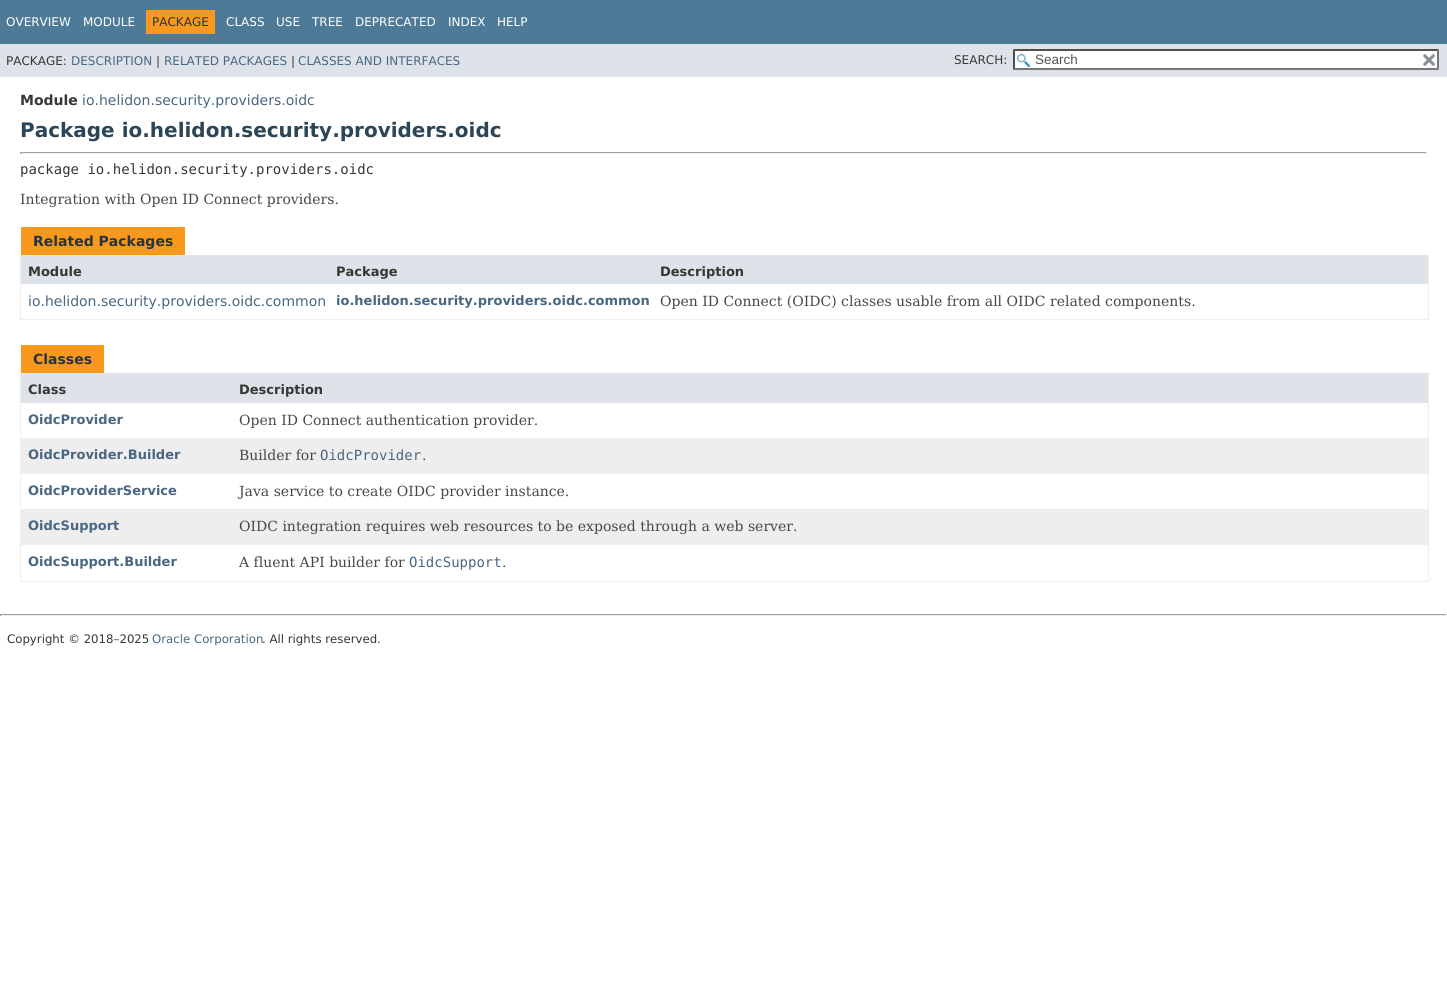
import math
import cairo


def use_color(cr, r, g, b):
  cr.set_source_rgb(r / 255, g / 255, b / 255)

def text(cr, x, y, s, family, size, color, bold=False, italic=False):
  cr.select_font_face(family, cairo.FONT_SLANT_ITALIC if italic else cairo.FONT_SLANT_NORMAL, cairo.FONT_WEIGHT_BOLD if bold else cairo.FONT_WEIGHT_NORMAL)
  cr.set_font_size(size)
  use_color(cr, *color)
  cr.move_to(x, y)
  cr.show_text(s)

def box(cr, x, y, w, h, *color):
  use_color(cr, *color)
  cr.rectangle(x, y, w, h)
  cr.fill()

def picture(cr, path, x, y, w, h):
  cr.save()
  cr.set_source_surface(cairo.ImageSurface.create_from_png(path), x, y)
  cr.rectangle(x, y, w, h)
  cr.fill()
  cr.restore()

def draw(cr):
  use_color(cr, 255, 255, 255)
  cr.paint()
  box(cr, 0, 0, 1447, 44, 77, 122, 151)
  box(cr, 146, 10, 69, 24, 248, 152, 29)
  box(cr, 0, 44, 1447, 33, 222, 227, 233)
  box(cr, 1013, 49, 426, 21, 255, 255, 255)
  picture(cr, "img_01.png", 1017, 54, 13, 13)
  use_color(cr, 79, 79, 79)
  cr.new_path()
  cr.move_to(1013, 49)
  cr.line_to(1439, 49)
  cr.line_to(1437, 51)
  cr.line_to(1015, 51)
  cr.close_path()
  cr.fill()
  use_color(cr, 118, 118, 118)
  cr.new_path()
  cr.move_to(1439, 49)
  cr.line_to(1439, 70)
  cr.line_to(1437, 68)
  cr.line_to(1437, 51)
  cr.close_path()
  cr.fill()
  cr.new_path()
  cr.move_to(1439, 70)
  cr.line_to(1013, 70)
  cr.line_to(1015, 68)
  cr.line_to(1437, 68)
  cr.close_path()
  cr.fill()
  use_color(cr, 79, 79, 79)
  cr.new_path()
  cr.move_to(1013, 70)
  cr.line_to(1013, 49)
  cr.line_to(1015, 51)
  cr.line_to(1015, 68)
  cr.close_path()
  cr.fill()
  picture(cr, "img_02.png", 1422, 54, 14, 12)
  box(cr, 20, 152, 1407, 1, 159, 159, 159)
  box(cr, 1426, 152, 1, 2, 238, 238, 238)
  box(cr, 20, 153, 1407, 1, 238, 238, 238)
  box(cr, 20, 152, 1, 2, 159, 159, 159)
  box(cr, 21, 227, 164, 28, 248, 152, 29)
  box(cr, 1428, 255, 1, 65, 238, 238, 238)
  box(cr, 20, 319, 1409, 1, 238, 238, 238)
  box(cr, 20, 255, 1, 65, 238, 238, 238)
  box(cr, 21, 255, 632, 29, 222, 227, 233)
  box(cr, 653, 255, 775, 29, 222, 227, 233)
  box(cr, 21, 345, 83, 28, 248, 152, 29)
  box(cr, 1428, 373, 1, 209, 238, 238, 238)
  box(cr, 20, 581, 1409, 1, 238, 238, 238)
  box(cr, 20, 373, 1, 209, 238, 238, 238)
  box(cr, 21, 373, 1407, 30, 222, 227, 233)
  box(cr, 21, 438, 1407, 36, 238, 238, 239)
  box(cr, 21, 509, 1407, 36, 238, 238, 239)
  box(cr, 0, 614, 1447, 1, 159, 159, 159)
  box(cr, 1446, 614, 1, 2, 238, 238, 238)
  box(cr, 0, 615, 1447, 1, 238, 238, 238)
  box(cr, 0, 614, 1, 2, 159, 159, 159)
  text(cr, 6, 26, "OVERVIEW", "DejaVu Sans", 12, (255, 255, 255))
  text(cr, 83, 26, "MODULE", "DejaVu Sans", 12, (255, 255, 255))
  text(cr, 152, 26, "PACKAGE", "DejaVu Sans", 12, (37, 52, 65))
  text(cr, 226, 26, "CLASS", "DejaVu Sans", 12, (255, 255, 255))
  text(cr, 276, 26, "USE", "DejaVu Sans", 12, (255, 255, 255))
  text(cr, 312, 26, "TREE", "DejaVu Sans", 12, (255, 255, 255))
  text(cr, 355, 26, "DEPRECATED", "DejaVu Sans", 12, (255, 255, 255))
  text(cr, 448, 26, "INDEX", "DejaVu Sans", 12, (255, 255, 255))
  text(cr, 497, 26, "HELP", "DejaVu Sans", 12, (255, 255, 255))
  text(cr, 6, 65, "PACKAGE:", "DejaVu Sans", 12, (53, 56, 51))
  text(cr, 71, 65, "DESCRIPTION", "DejaVu Sans", 12, (74, 103, 130))
  text(cr, 156, 65, "|", "DejaVu Sans", 12, (53, 56, 51))
  text(cr, 164, 65, "RELATED PACKAGES", "DejaVu Sans", 12, (74, 103, 130))
  text(cr, 291, 65, "|", "DejaVu Sans", 12, (53, 56, 51))
  text(cr, 298, 65, "CLASSES AND INTERFACES", "DejaVu Sans", 12, (74, 103, 130))
  text(cr, 954, 64, "SEARCH:", "DejaVu Sans", 12, (53, 56, 51))
  text(cr, 1035, 64, "Search", "Liberation Sans", 13.5, (84, 84, 84))
  text(cr, 20, 105, "Module", "DejaVu Sans", 14, (53, 56, 51), bold=True)
  text(cr, 82, 105, "io.helidon.security.providers.oidc", "DejaVu Sans", 14, (74, 103, 130))
  text(cr, 20, 137, "Package io.helidon.security.providers.oidc", "DejaVu Sans", 20, (44, 69, 87), bold=True)
  text(cr, 20, 174, "package io.helidon.security.providers.oidc", "DejaVu Sans Mono", 14, (53, 56, 51))
  text(cr, 20, 204, "Integration with Open ID Connect providers.", "DejaVu Serif", 14, (71, 71, 71))
  text(cr, 33, 246, "Related Packages", "DejaVu Sans", 14, (37, 52, 65), bold=True)
  text(cr, 28, 276, "Module", "DejaVu Sans", 13, (53, 56, 51), bold=True)
  text(cr, 336, 276, "Package", "DejaVu Sans", 13, (53, 56, 51), bold=True)
  text(cr, 660, 276, "Description", "DejaVu Sans", 13, (53, 56, 51), bold=True)
  text(cr, 28, 306, "io.helidon.security.providers.oidc.common", "DejaVu Sans", 14, (74, 103, 130))
  text(cr, 336, 305, "io.helidon.security.providers.oidc.common", "DejaVu Sans", 13, (74, 103, 130), bold=True)
  text(cr, 660, 306, "Open ID Connect (OIDC) classes usable from all OIDC related components.", "DejaVu Serif", 14, (71, 71, 71))
  text(cr, 33, 364, "Classes", "DejaVu Sans", 14, (37, 52, 65), bold=True)
  text(cr, 28, 394, "Class", "DejaVu Sans", 13, (53, 56, 51), bold=True)
  text(cr, 239, 394, "Description", "DejaVu Sans", 13, (53, 56, 51), bold=True)
  text(cr, 28, 424, "OidcProvider", "DejaVu Sans", 13, (74, 103, 130), bold=True)
  text(cr, 239, 425, "Open ID Connect authentication provider.", "DejaVu Serif", 14, (71, 71, 71))
  text(cr, 28, 459, "OidcProvider.Builder", "DejaVu Sans", 13, (74, 103, 130), bold=True)
  text(cr, 239, 460, "Builder for", "DejaVu Serif", 14, (71, 71, 71))
  text(cr, 320, 460, "OidcProvider", "DejaVu Sans Mono", 14, (74, 103, 130))
  text(cr, 422, 460, ".", "DejaVu Serif", 14, (71, 71, 71))
  text(cr, 28, 495, "OidcProviderService", "DejaVu Sans", 13, (74, 103, 130), bold=True)
  text(cr, 239, 496, "Java service to create OIDC provider instance.", "DejaVu Serif", 14, (71, 71, 71))
  text(cr, 28, 530, "OidcSupport", "DejaVu Sans", 13, (74, 103, 130), bold=True)
  text(cr, 239, 531, "OIDC integration requires web resources to be exposed through a web server.", "DejaVu Serif", 14, (71, 71, 71))
  text(cr, 28, 566, "OidcSupport.Builder", "DejaVu Sans", 13, (74, 103, 130), bold=True)
  text(cr, 239, 567, "A fluent API builder for", "DejaVu Serif", 14, (71, 71, 71))
  text(cr, 409, 567, "OidcSupport", "DejaVu Sans Mono", 14, (74, 103, 130))
  text(cr, 502, 567, ".", "DejaVu Serif", 14, (71, 71, 71))
  text(cr, 7, 643, "Copyright © 2018–2025", "DejaVu Sans", 11.75, (53, 56, 51))
  text(cr, 152, 643, "Oracle Corporation", "DejaVu Sans", 11.75, (74, 103, 130))
  text(cr, 262, 643, ". All rights reserved.", "DejaVu Sans", 11.75, (53, 56, 51))


surface = cairo.ImageSurface(cairo.FORMAT_RGB24, 1447, 999)
cr = cairo.Context(surface)
options = cairo.FontOptions()
options.set_hint_metrics(cairo.HINT_METRICS_OFF)
options.set_hint_style(cairo.HINT_STYLE_NONE)
cr.set_font_options(options)
cr.set_miter_limit(4)
draw(cr)
surface.write_to_png("out.png")
